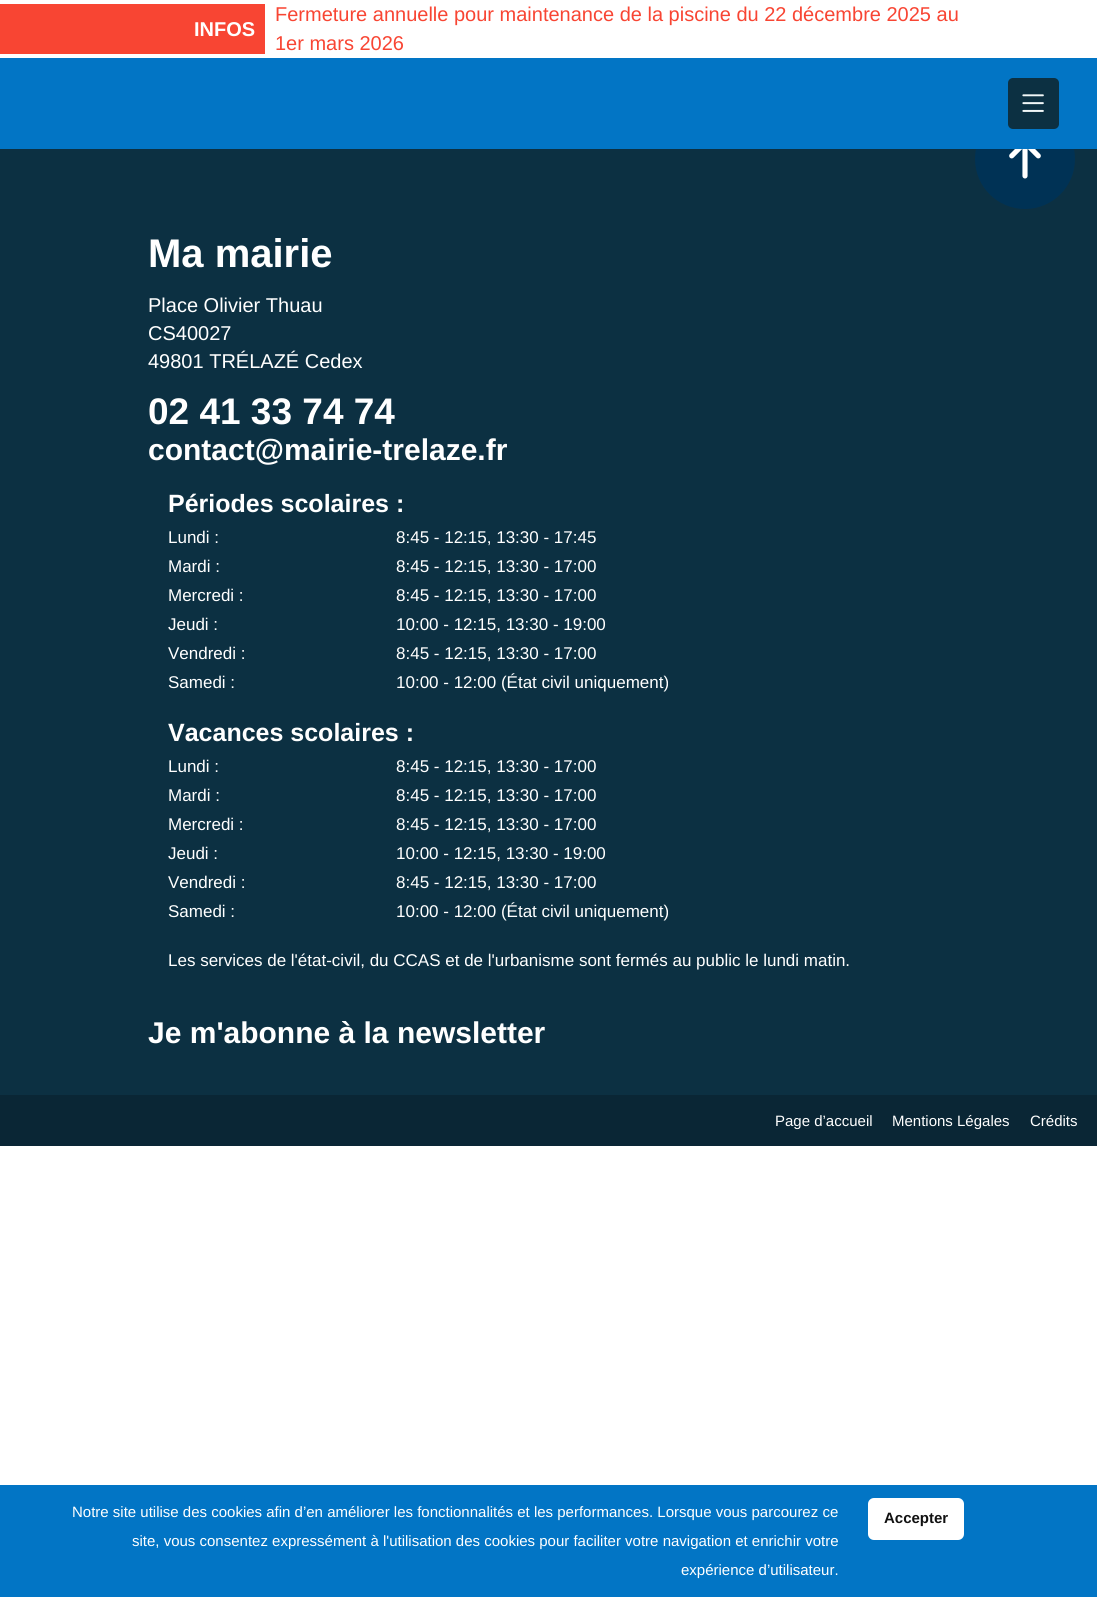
import math
import cairo


def use_color(cr, r, g, b):
  cr.set_source_rgb(r / 255, g / 255, b / 255)

def text(cr, x, y, s, family, size, color, bold=False, italic=False):
  cr.select_font_face(family, cairo.FONT_SLANT_ITALIC if italic else cairo.FONT_SLANT_NORMAL, cairo.FONT_WEIGHT_BOLD if bold else cairo.FONT_WEIGHT_NORMAL)
  cr.set_font_size(size)
  use_color(cr, *color)
  cr.move_to(x, y)
  cr.show_text(s)

def box(cr, x, y, w, h, *color):
  use_color(cr, *color)
  cr.rectangle(x, y, w, h)
  cr.fill()

def round_rect(cr, x, y, w, h, r):
  cr.new_sub_path()
  for i, (u, v) in enumerate([(x + w - r, y + h - r), (x + r, y + h - r), (x + r, y + r), (x + w - r, y + r)]):
    cr.arc(u, v, r, i * math.pi / 2, (i + 1) * math.pi / 2)
  cr.close_path()

def picture(cr, path, x, y, w, h):
  cr.save()
  cr.set_source_surface(cairo.ImageSurface.create_from_png(path), x, y)
  cr.rectangle(x, y, w, h)
  cr.fill()
  cr.restore()

def draw(cr):
  use_color(cr, 255, 255, 255)
  cr.paint()
  box(cr, 0, 4, 265, 50, 248, 69, 51)
  box(cr, 0, 149, 1097, 946, 12, 48, 66)
  use_color(cr, 0, 50, 85)
  cr.arc(1025, 159, 50, 0, 2 * math.pi)
  cr.fill()
  box(cr, 0, 58, 1097, 91, 2, 117, 197)
  use_color(cr, 12, 48, 66)
  round_rect(cr, 1008, 78, 51, 51, 5)
  cr.fill()
  picture(cr, "img_01.png", 1022, 94, 22, 18)
  picture(cr, "img_02.png", 1009, 149, 32, 30)
  box(cr, 0, 1095, 1097, 51, 10, 38, 53)
  box(cr, 0, 1485, 1097, 112, 2, 117, 197)
  use_color(cr, 255, 255, 255)
  round_rect(cr, 868, 1498, 96, 42, 6)
  cr.fill()
  text(cr, 194, 36, "INFOS", "Liberation Sans", 20, (255, 255, 255), bold=True)
  text(cr, 275, 21, "Fermeture annuelle pour maintenance de la piscine du 22 décembre 2025 au", "Liberation Sans", 20, (248, 69, 51))
  text(cr, 275, 50, "1er mars 2026", "Liberation Sans", 20, (248, 69, 51))
  text(cr, 148, 267, "Ma mairie", "Liberation Sans", 40, (255, 255, 255), bold=True)
  text(cr, 148, 312, "Place Olivier Thuau", "Liberation Sans", 20, (255, 255, 255))
  text(cr, 148, 340, "CS40027", "Liberation Sans", 20, (255, 255, 255))
  text(cr, 148, 368, "49801 TRÉLAZÉ Cedex", "Liberation Sans", 20, (255, 255, 255))
  text(cr, 148, 424, "02 41 33 74 74", "Liberation Sans", 37, (255, 255, 255), bold=True)
  text(cr, 148, 460, "contact@mairie-trelaze.fr", "Liberation Sans", 30, (255, 255, 255), bold=True)
  text(cr, 168, 512, "Périodes scolaires :", "Liberation Sans", 25, (255, 255, 255), bold=True)
  text(cr, 168, 543, "Lundi :", "Liberation Sans", 17, (255, 255, 255))
  text(cr, 396, 543, "8:45 - 12:15, 13:30 - 17:45", "Liberation Sans", 17, (255, 255, 255))
  text(cr, 168, 572, "Mardi :", "Liberation Sans", 17, (255, 255, 255))
  text(cr, 396, 572, "8:45 - 12:15, 13:30 - 17:00", "Liberation Sans", 17, (255, 255, 255))
  text(cr, 168, 601, "Mercredi :", "Liberation Sans", 17, (255, 255, 255))
  text(cr, 396, 601, "8:45 - 12:15, 13:30 - 17:00", "Liberation Sans", 17, (255, 255, 255))
  text(cr, 168, 630, "Jeudi :", "Liberation Sans", 17, (255, 255, 255))
  text(cr, 396, 630, "10:00 - 12:15, 13:30 - 19:00", "Liberation Sans", 17, (255, 255, 255))
  text(cr, 168, 659, "Vendredi :", "Liberation Sans", 17, (255, 255, 255))
  text(cr, 396, 659, "8:45 - 12:15, 13:30 - 17:00", "Liberation Sans", 17, (255, 255, 255))
  text(cr, 168, 688, "Samedi :", "Liberation Sans", 17, (255, 255, 255))
  text(cr, 396, 688, "10:00 - 12:00 (État civil uniquement)", "Liberation Sans", 17, (255, 255, 255))
  text(cr, 168, 741, "Vacances scolaires :", "Liberation Sans", 25, (255, 255, 255), bold=True)
  text(cr, 168, 772, "Lundi :", "Liberation Sans", 17, (255, 255, 255))
  text(cr, 396, 772, "8:45 - 12:15, 13:30 - 17:00", "Liberation Sans", 17, (255, 255, 255))
  text(cr, 168, 801, "Mardi :", "Liberation Sans", 17, (255, 255, 255))
  text(cr, 396, 801, "8:45 - 12:15, 13:30 - 17:00", "Liberation Sans", 17, (255, 255, 255))
  text(cr, 168, 830, "Mercredi :", "Liberation Sans", 17, (255, 255, 255))
  text(cr, 396, 830, "8:45 - 12:15, 13:30 - 17:00", "Liberation Sans", 17, (255, 255, 255))
  text(cr, 168, 859, "Jeudi :", "Liberation Sans", 17, (255, 255, 255))
  text(cr, 396, 859, "10:00 - 12:15, 13:30 - 19:00", "Liberation Sans", 17, (255, 255, 255))
  text(cr, 168, 888, "Vendredi :", "Liberation Sans", 17, (255, 255, 255))
  text(cr, 396, 888, "8:45 - 12:15, 13:30 - 17:00", "Liberation Sans", 17, (255, 255, 255))
  text(cr, 168, 917, "Samedi :", "Liberation Sans", 17, (255, 255, 255))
  text(cr, 396, 917, "10:00 - 12:00 (État civil uniquement)", "Liberation Sans", 17, (255, 255, 255))
  text(cr, 168, 966, "Les services de l'état-civil, du CCAS et de l'urbanisme sont fermés au public le lundi matin.", "Liberation Sans", 17, (255, 255, 255))
  text(cr, 148, 1043, "Je m'abonne à la newsletter", "Liberation Sans", 30, (255, 255, 255), bold=True)
  text(cr, 775, 1126, "Page d’accueil", "Liberation Sans", 15, (255, 255, 255))
  text(cr, 892, 1126, "Mentions Légales", "Liberation Sans", 15, (255, 255, 255))
  text(cr, 1030, 1126, "Crédits", "Liberation Sans", 15, (255, 255, 255))
  text(cr, 72, 1517, "Notre site utilise des cookies afin d’en améliorer les fonctionnalités et les performances. Lorsque vous parcourez ce", "Liberation Sans", 15, (255, 255, 255))
  text(cr, 132, 1546, "site, vous consentez expressément à l'utilisation des cookies pour faciliter votre navigation et enrichir votre", "Liberation Sans", 15, (255, 255, 255))
  text(cr, 681, 1575, "expérience d’utilisateur.", "Liberation Sans", 15, (255, 255, 255))
  text(cr, 884, 1523, "Accepter", "Liberation Sans", 15, (17, 17, 17), bold=True)


surface = cairo.ImageSurface(cairo.FORMAT_RGB24, 1097, 1597)
cr = cairo.Context(surface)
options = cairo.FontOptions()
options.set_hint_metrics(cairo.HINT_METRICS_OFF)
options.set_hint_style(cairo.HINT_STYLE_NONE)
cr.set_font_options(options)
cr.set_miter_limit(4)
draw(cr)
surface.write_to_png("out.png")
